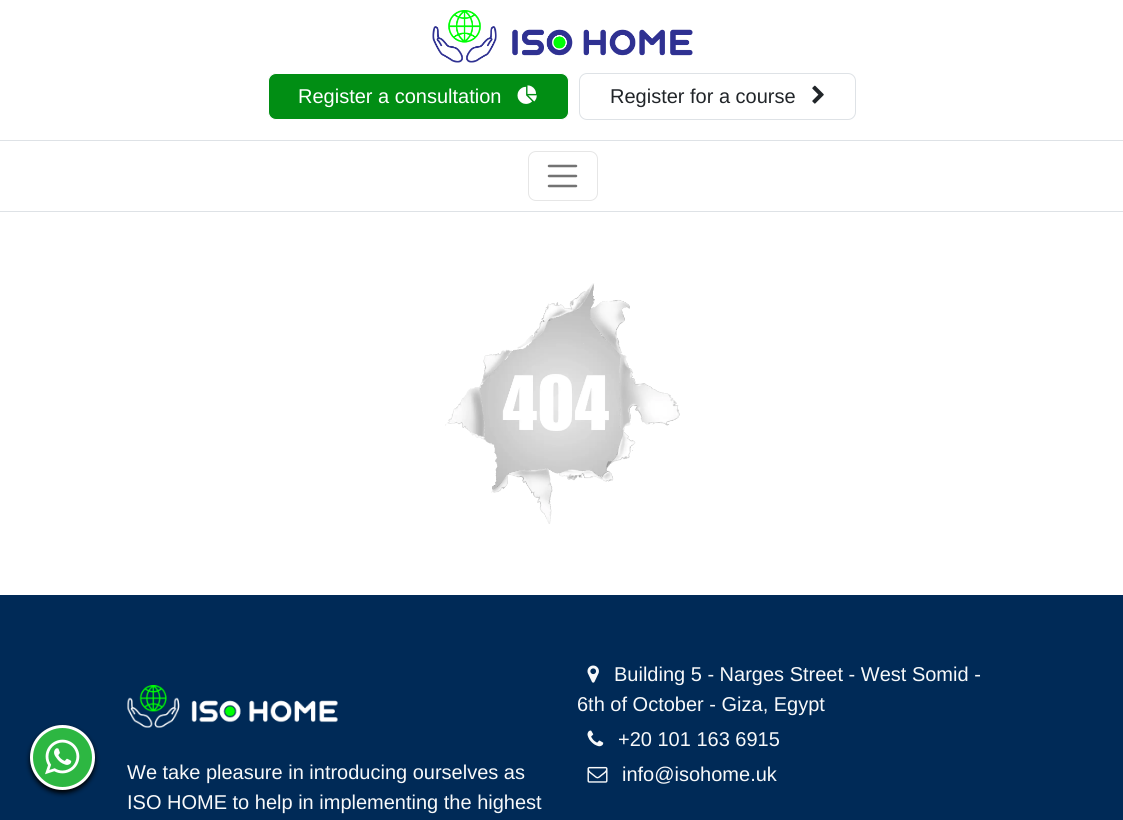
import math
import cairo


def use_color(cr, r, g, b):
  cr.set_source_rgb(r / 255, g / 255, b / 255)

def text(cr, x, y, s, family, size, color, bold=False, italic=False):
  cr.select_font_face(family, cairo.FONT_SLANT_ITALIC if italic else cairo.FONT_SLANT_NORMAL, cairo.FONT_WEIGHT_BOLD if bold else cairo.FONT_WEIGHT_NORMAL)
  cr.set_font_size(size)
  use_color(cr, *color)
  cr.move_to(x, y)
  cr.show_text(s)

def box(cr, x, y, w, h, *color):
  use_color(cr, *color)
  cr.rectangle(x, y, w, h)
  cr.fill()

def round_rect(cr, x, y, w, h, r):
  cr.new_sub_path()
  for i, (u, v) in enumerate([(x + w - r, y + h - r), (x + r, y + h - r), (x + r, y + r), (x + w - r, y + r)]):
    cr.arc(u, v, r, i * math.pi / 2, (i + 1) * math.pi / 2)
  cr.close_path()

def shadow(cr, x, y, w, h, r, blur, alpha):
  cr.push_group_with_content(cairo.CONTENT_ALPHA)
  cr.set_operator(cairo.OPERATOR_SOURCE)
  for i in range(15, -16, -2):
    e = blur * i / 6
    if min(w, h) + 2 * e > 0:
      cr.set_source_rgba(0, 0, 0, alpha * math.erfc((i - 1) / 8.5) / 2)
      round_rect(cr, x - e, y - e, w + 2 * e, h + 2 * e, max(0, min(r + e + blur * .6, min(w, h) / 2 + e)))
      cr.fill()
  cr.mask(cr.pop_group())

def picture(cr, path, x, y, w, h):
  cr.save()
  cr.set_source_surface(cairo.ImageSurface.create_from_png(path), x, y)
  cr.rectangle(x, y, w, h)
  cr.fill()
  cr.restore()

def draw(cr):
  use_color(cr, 255, 255, 255)
  cr.paint()
  box(cr, 0, 140, 1123, 1, 222, 226, 230)
  picture(cr, "img_01.png", 432, 10, 261, 53)
  use_color(cr, 1, 142, 20)
  round_rect(cr, 268.5, 73.5, 300, 46, 7.5)
  cr.fill_preserve()
  use_color(cr, 255, 255, 255)
  cr.set_line_width(1)
  cr.stroke()
  picture(cr, "img_02.png", 517, 85, 20, 19)
  round_rect(cr, 579.5, 73.5, 276, 46, 7.5)
  use_color(cr, 222, 226, 230)
  cr.stroke()
  picture(cr, "img_03.png", 812, 85, 12, 19)
  box(cr, 0, 211, 1123, 1, 222, 226, 230)
  round_rect(cr, 528.5, 151.5, 69, 49, 7.5)
  use_color(cr, 230, 230, 230)
  cr.stroke()
  cr.new_path()
  cr.move_to(549, 166)
  cr.line_to(576, 166)
  cr.move_to(549, 176)
  cr.line_to(576, 176)
  cr.move_to(549, 186)
  cr.line_to(576, 186)
  use_color(cr, 115, 115, 115)
  cr.set_line_width(2.5)
  cr.set_line_cap(cairo.LINE_CAP_ROUND)
  cr.stroke()
  picture(cr, "img_04.png", 445, 283, 235, 241)
  box(cr, 0, 595, 1123, 225, 0, 42, 87)
  use_color(cr, 0, 0, 0)
  shadow(cr, 30, 728, 65, 65, 32.5, 2.5, 1)
  use_color(cr, 45, 183, 66)
  cr.arc(62.5, 757.5, 31, 0, 2 * math.pi)
  cr.fill_preserve()
  use_color(cr, 255, 255, 255)
  cr.set_line_width(3)
  cr.set_line_cap(cairo.LINE_CAP_BUTT)
  cr.stroke()
  picture(cr, "img_05.png", 45, 739, 35, 36)
  picture(cr, "img_06.png", 587, 665, 12, 18)
  picture(cr, "img_07.png", 587, 730, 17, 17)
  picture(cr, "img_08.png", 587, 766, 21, 17)
  picture(cr, "img_09.png", 127, 685, 211, 43)
  text(cr, 298, 103, "Register a consultation", "Liberation Sans", 20, (255, 255, 255))
  text(cr, 610, 103, "Register for a course", "Liberation Sans", 20, (33, 37, 41))
  text(cr, 614, 681, "Building 5 - Narges Street - West Somid -", "Liberation Sans", 20, (248, 249, 250))
  text(cr, 577, 711, "6th of October - Giza, Egypt", "Liberation Sans", 20, (248, 249, 250))
  text(cr, 618, 746, "+20 101 163 6915", "Liberation Sans", 20, (248, 249, 250))
  text(cr, 622, 781, "info@isohome.uk", "Liberation Sans", 20, (248, 249, 250))
  text(cr, 127, 779, "We take pleasure in introducing ourselves as", "Liberation Sans", 20, (248, 249, 250))
  text(cr, 127, 809, "ISO HOME to help in implementing the highest", "Liberation Sans", 20, (248, 249, 250))


surface = cairo.ImageSurface(cairo.FORMAT_RGB24, 1123, 820)
cr = cairo.Context(surface)
options = cairo.FontOptions()
options.set_hint_metrics(cairo.HINT_METRICS_OFF)
options.set_hint_style(cairo.HINT_STYLE_NONE)
cr.set_font_options(options)
cr.set_miter_limit(4)
draw(cr)
surface.write_to_png("out.png")
